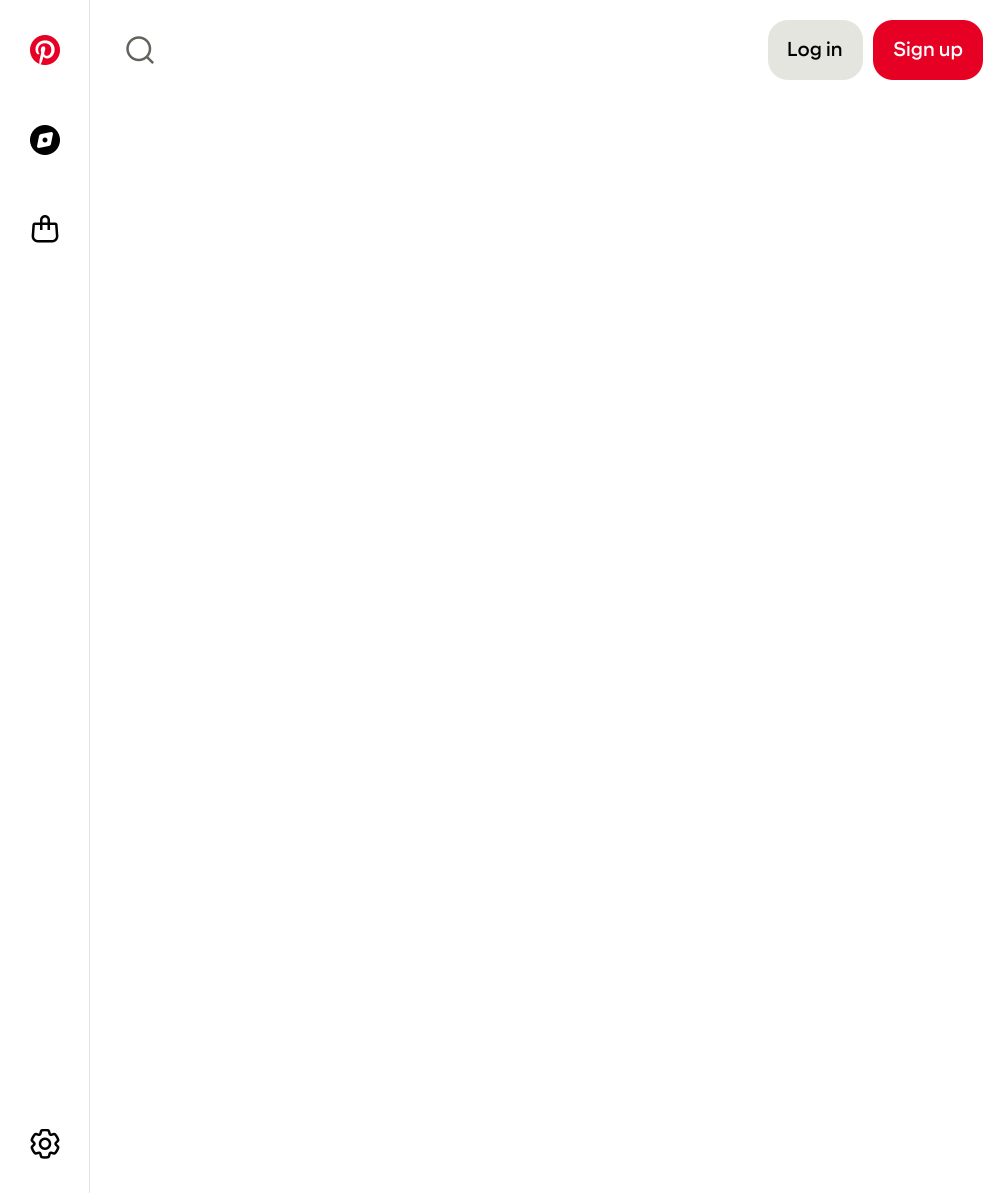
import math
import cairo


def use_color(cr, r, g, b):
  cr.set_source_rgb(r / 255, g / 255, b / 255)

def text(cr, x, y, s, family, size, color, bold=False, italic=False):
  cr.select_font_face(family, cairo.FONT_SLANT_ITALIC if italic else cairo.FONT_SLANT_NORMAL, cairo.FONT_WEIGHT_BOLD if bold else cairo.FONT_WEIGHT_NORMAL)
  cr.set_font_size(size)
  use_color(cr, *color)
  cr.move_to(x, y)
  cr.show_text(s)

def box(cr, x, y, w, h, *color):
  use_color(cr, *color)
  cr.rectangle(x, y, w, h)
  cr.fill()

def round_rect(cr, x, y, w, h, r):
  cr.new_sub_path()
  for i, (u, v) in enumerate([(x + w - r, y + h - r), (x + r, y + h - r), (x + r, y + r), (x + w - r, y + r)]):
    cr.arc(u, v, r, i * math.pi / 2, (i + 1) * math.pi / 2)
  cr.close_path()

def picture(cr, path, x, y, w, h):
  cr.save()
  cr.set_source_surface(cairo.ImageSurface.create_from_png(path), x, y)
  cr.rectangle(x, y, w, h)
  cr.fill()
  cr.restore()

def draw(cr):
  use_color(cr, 255, 255, 255)
  cr.paint()
  box(cr, 89, 0, 1, 1193, 229, 229, 224)
  picture(cr, "img_01.png", 30, 35, 30, 30)
  picture(cr, "img_02.png", 30, 125, 30, 30)
  picture(cr, "img_03.png", 31, 215, 28, 28)
  picture(cr, "img_04.png", 30, 1129, 30, 30)
  picture(cr, "img_05.png", 126, 36, 28, 28)
  round_rect(cr, 768, 20, 95, 60, 20)
  cr.fill()
  use_color(cr, 230, 0, 35)
  round_rect(cr, 873, 20, 110, 60, 20)
  cr.fill()
  text(cr, 787, 56, "Log in", "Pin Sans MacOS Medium", 20, (0, 0, 0))
  text(cr, 893, 56, "Sign up", "Pin Sans MacOS Medium", 20, (255, 255, 255))


surface = cairo.ImageSurface(cairo.FORMAT_RGB24, 1002, 1193)
cr = cairo.Context(surface)
options = cairo.FontOptions()
options.set_hint_metrics(cairo.HINT_METRICS_OFF)
options.set_hint_style(cairo.HINT_STYLE_NONE)
cr.set_font_options(options)
cr.set_miter_limit(4)
draw(cr)
surface.write_to_png("out.png")
